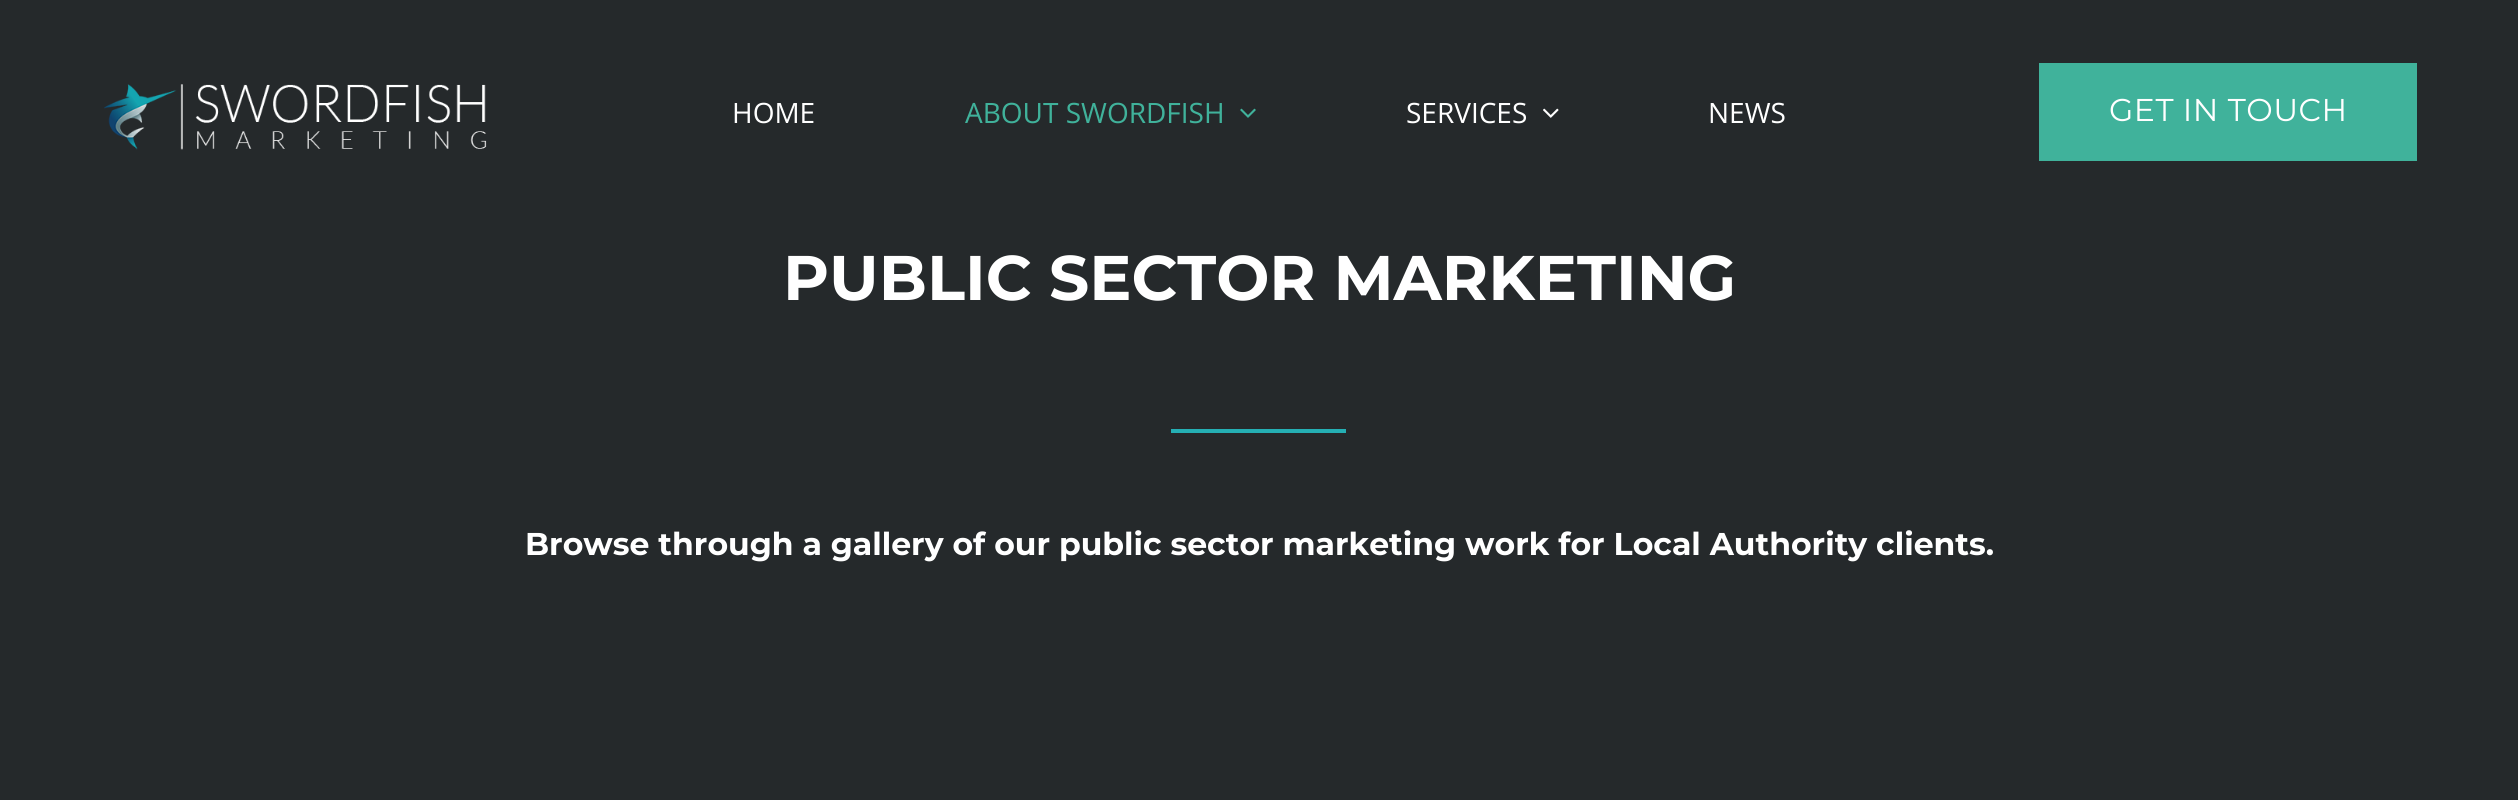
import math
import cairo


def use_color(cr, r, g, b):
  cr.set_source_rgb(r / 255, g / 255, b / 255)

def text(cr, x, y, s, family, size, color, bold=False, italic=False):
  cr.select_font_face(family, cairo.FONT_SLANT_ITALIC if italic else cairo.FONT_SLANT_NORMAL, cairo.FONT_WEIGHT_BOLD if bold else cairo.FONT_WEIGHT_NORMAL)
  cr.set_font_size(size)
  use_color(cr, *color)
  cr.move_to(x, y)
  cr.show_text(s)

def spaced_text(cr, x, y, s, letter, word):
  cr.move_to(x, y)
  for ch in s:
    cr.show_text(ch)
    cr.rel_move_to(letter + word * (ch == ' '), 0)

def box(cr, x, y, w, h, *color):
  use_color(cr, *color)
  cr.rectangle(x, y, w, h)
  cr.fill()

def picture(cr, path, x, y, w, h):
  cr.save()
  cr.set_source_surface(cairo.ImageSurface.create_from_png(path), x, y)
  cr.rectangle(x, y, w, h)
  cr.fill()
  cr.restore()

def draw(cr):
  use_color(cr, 37, 41, 43)
  cr.paint()
  picture(cr, "img_01.png", 104, 84, 383, 66)
  picture(cr, "img_02.png", 1240, 108, 16, 10)
  picture(cr, "img_03.png", 1543, 108, 16, 10)
  box(cr, 2039, 63, 378, 98, 64, 178, 155)
  box(cr, 1171, 429, 175, 4, 37, 175, 180)
  text(cr, 732, 123, "HOME", "Open Sans", 28, (255, 255, 255))
  text(cr, 965, 123, "ABOUT SWORDFISH", "Open Sans", 28, (64, 178, 155))
  text(cr, 1406, 123, "SERVICES", "Open Sans", 28, (255, 255, 255))
  text(cr, 1708, 123, "NEWS", "Open Sans", 28, (255, 255, 255))
  cr.select_font_face("Montserrat")
  cr.set_font_size(31.5)
  spaced_text(cr, 2109, 121, "GET IN TOUCH", 0.5, 0)
  text(cr, 783, 300, "PUBLIC SECTOR MARKETING", "Montserrat", 63, (255, 255, 255), bold=True)
  text(cr, 525, 555, "Browse through a gallery of our public sector marketing work for Local Authority clients.", "Montserrat", 31.5, (255, 255, 255), bold=True)


surface = cairo.ImageSurface(cairo.FORMAT_RGB24, 2518, 800)
cr = cairo.Context(surface)
options = cairo.FontOptions()
options.set_hint_metrics(cairo.HINT_METRICS_OFF)
options.set_hint_style(cairo.HINT_STYLE_NONE)
cr.set_font_options(options)
cr.set_miter_limit(4)
draw(cr)
surface.write_to_png("out.png")
